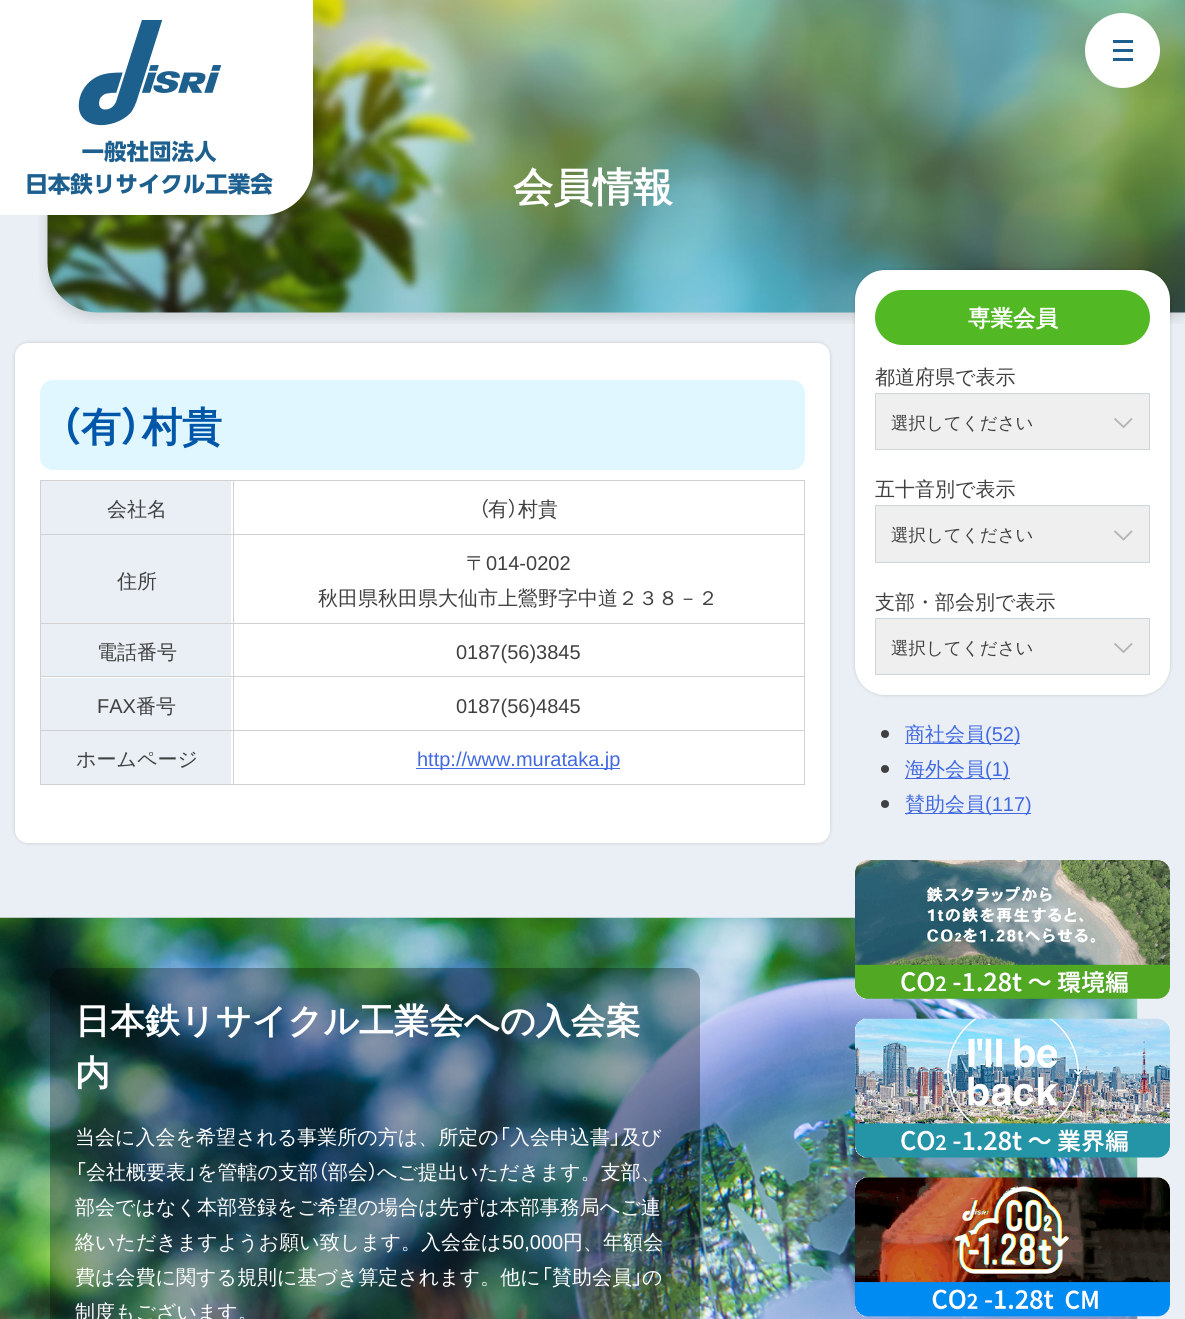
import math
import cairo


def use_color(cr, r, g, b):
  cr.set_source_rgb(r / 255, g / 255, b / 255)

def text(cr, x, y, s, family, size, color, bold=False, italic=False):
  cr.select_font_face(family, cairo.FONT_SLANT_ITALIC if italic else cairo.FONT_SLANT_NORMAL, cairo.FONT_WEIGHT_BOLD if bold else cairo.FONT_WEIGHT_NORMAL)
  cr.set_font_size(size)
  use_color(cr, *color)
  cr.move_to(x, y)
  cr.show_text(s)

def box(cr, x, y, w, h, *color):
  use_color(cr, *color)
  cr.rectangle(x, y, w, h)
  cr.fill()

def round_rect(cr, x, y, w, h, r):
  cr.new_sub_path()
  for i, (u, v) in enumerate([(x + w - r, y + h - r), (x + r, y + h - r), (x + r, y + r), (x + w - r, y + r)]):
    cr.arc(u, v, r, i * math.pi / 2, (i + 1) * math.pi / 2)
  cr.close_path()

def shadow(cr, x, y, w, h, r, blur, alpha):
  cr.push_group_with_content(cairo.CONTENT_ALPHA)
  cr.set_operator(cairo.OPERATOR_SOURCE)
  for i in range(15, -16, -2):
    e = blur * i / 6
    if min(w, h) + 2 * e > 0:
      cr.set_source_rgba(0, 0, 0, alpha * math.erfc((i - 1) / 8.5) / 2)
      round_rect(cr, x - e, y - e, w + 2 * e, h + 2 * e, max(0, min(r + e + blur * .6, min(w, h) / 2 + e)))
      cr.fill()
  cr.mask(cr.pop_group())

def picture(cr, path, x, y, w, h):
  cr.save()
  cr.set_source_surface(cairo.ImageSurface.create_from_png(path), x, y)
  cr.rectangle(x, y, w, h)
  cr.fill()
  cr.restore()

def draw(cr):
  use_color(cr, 233, 239, 244)
  cr.paint()
  picture(cr, "img_02.png", 39, 0, 1146, 324)
  use_color(cr, 255, 255, 255)
  cr.new_path()
  cr.move_to(0, 0)
  cr.line_to(313, 0)
  cr.line_to(313, 165)
  cr.curve_to(313, 192.5, 290.5, 215, 263, 215)
  cr.line_to(0, 215)
  cr.close_path()
  cr.fill()
  picture(cr, "img_01.png", 27, 20, 246, 175)
  cr.arc(1122.5, 50.5, 37.5, 0, 2 * math.pi)
  cr.fill()
  box(cr, 1113, 40, 20, 3, 29, 95, 143)
  box(cr, 1113, 49, 20, 3, 29, 95, 143)
  box(cr, 1113, 58, 20, 3, 29, 95, 143)
  use_color(cr, 0, 0, 0)
  shadow(cr, 15, 343, 815, 500, 13, 2, 0.16)
  use_color(cr, 255, 255, 255)
  round_rect(cr, 15, 343, 815, 500, 13)
  cr.fill()
  use_color(cr, 224, 247, 255)
  round_rect(cr, 40, 380, 765, 90, 13)
  cr.fill()
  box(cr, 40, 480, 765, 1, 209, 209, 209)
  box(cr, 40, 480, 1, 305, 209, 209, 209)
  box(cr, 41, 481, 190, 53, 233, 239, 244)
  box(cr, 804, 480, 1, 305, 209, 209, 209)
  box(cr, 233, 784, 572, 1, 209, 209, 209)
  box(cr, 233, 730, 1, 55, 209, 209, 209)
  box(cr, 233, 730, 572, 1, 209, 209, 209)
  box(cr, 233, 676, 1, 55, 209, 209, 209)
  box(cr, 233, 676, 572, 1, 209, 209, 209)
  box(cr, 233, 623, 1, 55, 209, 209, 209)
  box(cr, 233, 623, 572, 1, 209, 209, 209)
  box(cr, 233, 534, 1, 90, 209, 209, 209)
  box(cr, 233, 534, 572, 1, 209, 209, 209)
  box(cr, 233, 480, 1, 55, 209, 209, 209)
  box(cr, 40, 534, 194, 1, 209, 209, 209)
  box(cr, 41, 535, 190, 88, 233, 239, 244)
  box(cr, 40, 623, 194, 1, 209, 209, 209)
  box(cr, 41, 624, 190, 52, 233, 239, 244)
  box(cr, 40, 676, 194, 1, 209, 209, 209)
  box(cr, 41, 678, 190, 52, 233, 239, 244)
  box(cr, 40, 730, 194, 1, 209, 209, 209)
  box(cr, 41, 731, 190, 53, 233, 239, 244)
  box(cr, 40, 784, 194, 1, 209, 209, 209)
  box(cr, 416, 768, 204, 1, 65, 105, 225)
  use_color(cr, 0, 0, 0)
  shadow(cr, 855, 270, 315, 425, 30, 2, 0.16)
  use_color(cr, 255, 255, 255)
  round_rect(cr, 855, 270, 315, 425, 30)
  cr.fill()
  use_color(cr, 82, 185, 37)
  round_rect(cr, 875, 290, 275, 55, 27.5)
  cr.fill()
  box(cr, 876, 394, 273, 55, 239, 239, 239)
  cr.new_path()
  cr.move_to(1132, 418.5)
  cr.line_to(1123.5, 427)
  cr.line_to(1114.5, 418.5)
  use_color(cr, 181, 181, 181)
  cr.set_line_width(1.9)
  cr.stroke()
  cr.rectangle(875.5, 393.5, 274, 56)
  use_color(cr, 205, 214, 221)
  cr.set_line_width(1)
  cr.stroke()
  box(cr, 876, 506, 273, 56, 239, 239, 239)
  cr.new_path()
  cr.move_to(1132, 531)
  cr.line_to(1123.5, 539.5)
  cr.line_to(1114.5, 531)
  use_color(cr, 181, 181, 181)
  cr.set_line_width(1.9)
  cr.stroke()
  cr.rectangle(875.5, 505.5, 274, 57)
  use_color(cr, 205, 214, 221)
  cr.set_line_width(1)
  cr.stroke()
  box(cr, 876, 619, 273, 55, 239, 239, 239)
  cr.new_path()
  cr.move_to(1132, 643.5)
  cr.line_to(1123.5, 652)
  cr.line_to(1114.5, 643.5)
  use_color(cr, 181, 181, 181)
  cr.set_line_width(1.9)
  cr.stroke()
  cr.rectangle(875.5, 618.5, 274, 56)
  use_color(cr, 205, 214, 221)
  cr.set_line_width(1)
  cr.stroke()
  use_color(cr, 64, 64, 64)
  cr.arc(885, 734, 4, 0, 2 * math.pi)
  cr.fill()
  box(cr, 905, 743, 115, 1, 65, 105, 225)
  use_color(cr, 64, 64, 64)
  cr.arc(885, 769, 4, 0, 2 * math.pi)
  cr.fill()
  box(cr, 905, 778, 105, 1, 65, 105, 225)
  use_color(cr, 64, 64, 64)
  cr.arc(885, 804, 4, 0, 2 * math.pi)
  cr.fill()
  box(cr, 905, 813, 126, 1, 65, 105, 225)
  picture(cr, "img_06.png", 0, 917, 1138, 402)
  picture(cr, "img_03.png", 855, 860, 315, 139)
  picture(cr, "img_04.png", 855, 1018, 315, 140)
  picture(cr, "img_05.png", 855, 1177, 315, 140)
  cr.set_source_rgba(0, 0, 0, 0.3)
  round_rect(cr, 50, 968, 650, 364, 13)
  cr.fill()
  text(cr, 513, 201, "会員情報", "WenQuanYi Zen Hei", 40, (255, 255, 255), bold=True)
  text(cr, 60, 441, "（", "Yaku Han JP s", 40, (0, 86, 169), bold=True)
  text(cr, 81, 441, "有", "WenQuanYi Zen Hei", 40, (0, 86, 169), bold=True)
  text(cr, 121, 441, "）", "Yaku Han JP s", 40, (0, 86, 169), bold=True)
  text(cr, 142, 441, "村貴", "WenQuanYi Zen Hei", 40, (0, 86, 169), bold=True)
  text(cr, 107, 516, "会社名", "WenQuanYi Zen Hei Medium", 20, (64, 64, 64))
  text(cr, 479, 516, "（", "Yaku Han JP s", 20, (64, 64, 64))
  text(cr, 488, 516, "有", "WenQuanYi Zen Hei Medium", 20, (64, 64, 64))
  text(cr, 508, 516, "）", "Yaku Han JP s", 20, (64, 64, 64))
  text(cr, 518, 516, "村貴", "WenQuanYi Zen Hei Medium", 20, (64, 64, 64))
  text(cr, 117, 588, "住所", "WenQuanYi Zen Hei Medium", 20, (64, 64, 64))
  text(cr, 466, 570, "〒", "WenQuanYi Zen Hei Medium", 20, (64, 64, 64))
  text(cr, 486, 570, "014-0202", "Liberation Sans", 20, (64, 64, 64))
  text(cr, 318, 605, "秋田県秋田県大仙市上鶯野字中道２３８－２", "WenQuanYi Zen Hei Medium", 20, (64, 64, 64))
  text(cr, 97, 659, "電話番号", "WenQuanYi Zen Hei Medium", 20, (64, 64, 64))
  text(cr, 456, 659, "0187(56)3845", "Liberation Sans", 20, (64, 64, 64))
  text(cr, 97, 713, "FAX", "Liberation Sans", 20, (64, 64, 64))
  text(cr, 136, 713, "番号", "WenQuanYi Zen Hei Medium", 20, (64, 64, 64))
  text(cr, 456, 713, "0187(56)4845", "Liberation Sans", 20, (64, 64, 64))
  text(cr, 76, 766, "ホームページ", "WenQuanYi Zen Hei Medium", 20, (64, 64, 64))
  text(cr, 417, 766, "http://www.murataka.jp", "Liberation Sans", 20, (65, 105, 225))
  text(cr, 968, 326, "専業会員", "WenQuanYi Zen Hei", 22.5, (255, 255, 255), bold=True)
  text(cr, 875, 384, "都道府県で表示", "WenQuanYi Zen Hei Medium", 20, (64, 64, 64))
  text(cr, 891, 429, "選択してください", "WenQuanYi Zen Hei Medium", 17.5, (64, 64, 64))
  text(cr, 875, 496, "五十音別で表示", "WenQuanYi Zen Hei Medium", 20, (64, 64, 64))
  text(cr, 891, 541, "選択してください", "WenQuanYi Zen Hei Medium", 17.5, (64, 64, 64))
  text(cr, 875, 609, "支部・部会別で表示", "WenQuanYi Zen Hei Medium", 20, (64, 64, 64))
  text(cr, 891, 654, "選択してください", "WenQuanYi Zen Hei Medium", 17.5, (64, 64, 64))
  text(cr, 905, 741, "商社会員", "WenQuanYi Zen Hei Medium", 20, (65, 105, 225))
  text(cr, 985, 741, "(52)", "Liberation Sans", 20, (65, 105, 225))
  text(cr, 905, 776, "海外会員", "WenQuanYi Zen Hei Medium", 20, (65, 105, 225))
  text(cr, 985, 776, "(1)", "Liberation Sans", 20, (65, 105, 225))
  text(cr, 905, 811, "賛助会員", "WenQuanYi Zen Hei Medium", 20, (65, 105, 225))
  text(cr, 985, 811, "(117)", "Liberation Sans", 20, (65, 105, 225))
  text(cr, 75, 1033, "日本鉄リサイクル工業会への入会案", "WenQuanYi Zen Hei", 35, (255, 255, 255), bold=True)
  text(cr, 75, 1085, "内", "WenQuanYi Zen Hei", 35, (255, 255, 255), bold=True)
  text(cr, 75, 1144, "当会に入会を希望される事業所の方は、所定の", "WenQuanYi Zen Hei Medium", 20, (255, 255, 255))
  text(cr, 499, 1144, "「", "Yaku Han JP s", 20, (255, 255, 255))
  text(cr, 510, 1144, "入会申込書", "WenQuanYi Zen Hei Medium", 20, (255, 255, 255))
  text(cr, 610, 1144, "」", "Yaku Han JP s", 20, (255, 255, 255))
  text(cr, 621, 1144, "及び", "WenQuanYi Zen Hei Medium", 20, (255, 255, 255))
  text(cr, 75, 1179, "「", "Yaku Han JP s", 20, (255, 255, 255))
  text(cr, 86, 1179, "会社概要表", "WenQuanYi Zen Hei Medium", 20, (255, 255, 255))
  text(cr, 186, 1179, "」", "Yaku Han JP s", 20, (255, 255, 255))
  text(cr, 197, 1179, "を管轄の支部", "WenQuanYi Zen Hei Medium", 20, (255, 255, 255))
  text(cr, 318, 1179, "（", "Yaku Han JP s", 20, (255, 255, 255))
  text(cr, 328, 1179, "部会", "WenQuanYi Zen Hei Medium", 20, (255, 255, 255))
  text(cr, 368, 1179, "）", "Yaku Han JP s", 20, (255, 255, 255))
  text(cr, 377, 1179, "へご提出いただきます。支部、", "WenQuanYi Zen Hei Medium", 20, (255, 255, 255))
  text(cr, 75, 1214, "部会ではなく本部登録をご希望の場合は先ずは本部事務局へご連", "WenQuanYi Zen Hei Medium", 20, (255, 255, 255))
  text(cr, 75, 1249, "絡いただきますようお願い致します。入会金は", "WenQuanYi Zen Hei Medium", 20, (255, 255, 255))
  text(cr, 502, 1249, "50,000", "Liberation Sans", 20, (255, 255, 255))
  text(cr, 563, 1249, "円、年額会", "WenQuanYi Zen Hei Medium", 20, (255, 255, 255))
  text(cr, 75, 1284, "費は会費に関する規則に基づき算定されます。他に", "WenQuanYi Zen Hei Medium", 20, (255, 255, 255))
  text(cr, 541, 1284, "「", "Yaku Han JP s", 20, (255, 255, 255))
  text(cr, 552, 1284, "賛助会員", "WenQuanYi Zen Hei Medium", 20, (255, 255, 255))
  text(cr, 632, 1284, "」", "Yaku Han JP s", 20, (255, 255, 255))
  text(cr, 642, 1284, "の", "WenQuanYi Zen Hei Medium", 20, (255, 255, 255))
  text(cr, 75, 1319, "制度もございます。", "WenQuanYi Zen Hei Medium", 20, (255, 255, 255))


surface = cairo.ImageSurface(cairo.FORMAT_RGB24, 1185, 1319)
cr = cairo.Context(surface)
options = cairo.FontOptions()
options.set_hint_metrics(cairo.HINT_METRICS_OFF)
options.set_hint_style(cairo.HINT_STYLE_NONE)
cr.set_font_options(options)
cr.set_miter_limit(4)
draw(cr)
surface.write_to_png("out.png")
